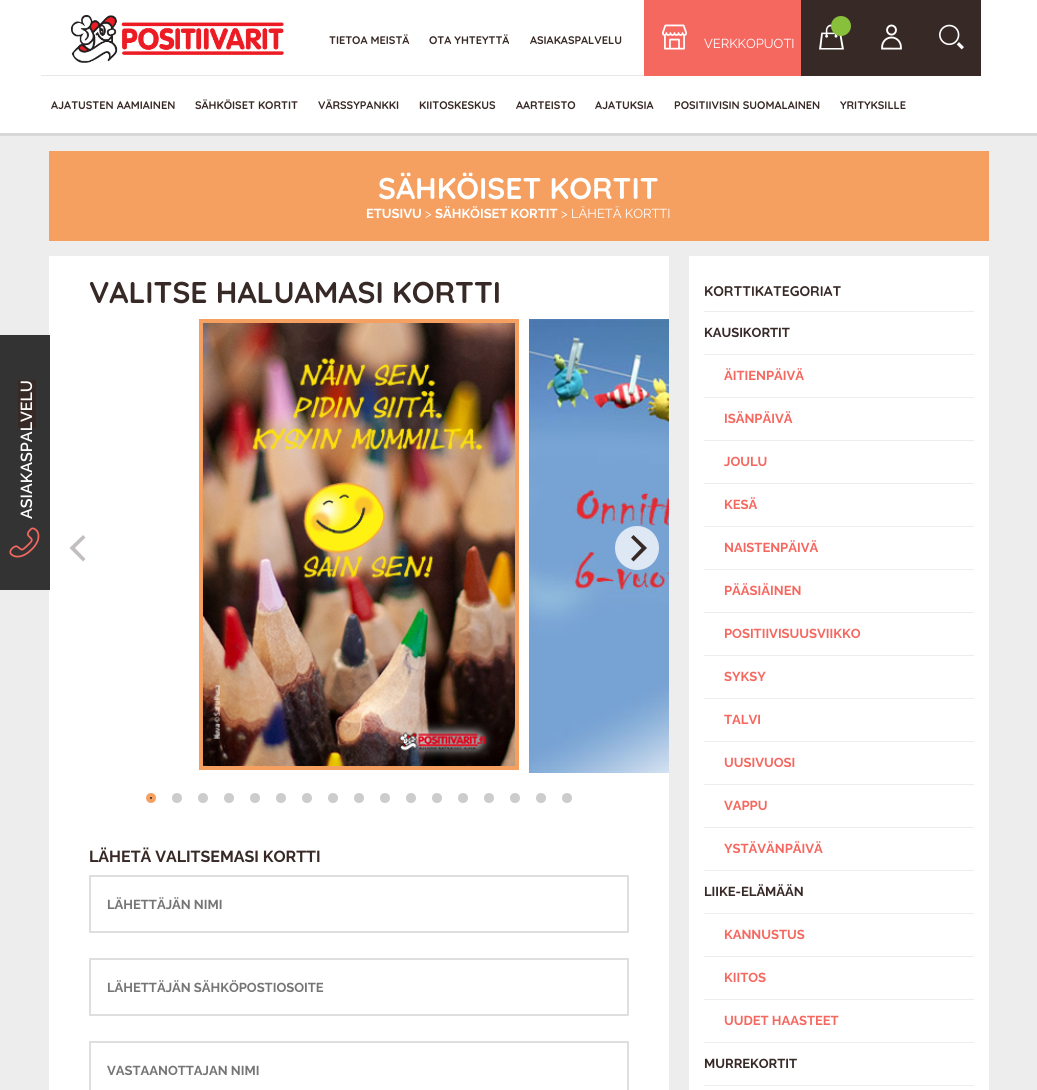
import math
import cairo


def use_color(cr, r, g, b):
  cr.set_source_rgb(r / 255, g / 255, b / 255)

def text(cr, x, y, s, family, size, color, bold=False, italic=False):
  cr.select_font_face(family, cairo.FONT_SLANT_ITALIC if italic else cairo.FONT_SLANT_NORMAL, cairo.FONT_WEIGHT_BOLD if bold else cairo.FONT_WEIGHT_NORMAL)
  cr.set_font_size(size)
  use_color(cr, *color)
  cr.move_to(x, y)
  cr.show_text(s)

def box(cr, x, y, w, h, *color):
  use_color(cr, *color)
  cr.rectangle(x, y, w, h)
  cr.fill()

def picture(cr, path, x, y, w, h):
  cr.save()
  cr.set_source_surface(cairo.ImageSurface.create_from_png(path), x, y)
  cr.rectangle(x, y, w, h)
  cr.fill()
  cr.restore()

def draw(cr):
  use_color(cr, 237, 237, 237)
  cr.paint()
  box(cr, 49, 256, 620, 834, 255, 255, 255)
  box(cr, 0, 335, 50, 255, 51, 51, 51)
  box(cr, 18, 380, 18, 48, 55, 41, 38)
  picture(cr, "img_01.png", 9, 527, 31, 31)
  box(cr, 0, 0, 1037, 133, 255, 255, 255)
  box(cr, 0, 133, 1037, 3, 217, 216, 216)
  box(cr, 41, 75, 603, 1, 231, 231, 230)
  picture(cr, "img_02.png", 71, 15, 213, 48)
  box(cr, 801, 0, 180, 76, 55, 41, 38)
  picture(cr, "img_03.png", 939, 24, 25, 26)
  box(cr, 644, 0, 157, 76, 245, 104, 96)
  picture(cr, "img_04.png", 662, 24, 25, 26)
  picture(cr, "img_05.png", 819, 24, 25, 26)
  use_color(cr, 137, 192, 59)
  cr.arc(841, 26, 10, 0, 2 * math.pi)
  cr.fill()
  picture(cr, "img_06.png", 881, 24, 21, 26)
  box(cr, 49, 151, 940, 90, 245, 159, 96)
  cr.rectangle(201, 321, 316, 447)
  cr.set_line_width(4)
  cr.stroke()
  picture(cr, "img_07.png", 202, 323, 313, 443)
  picture(cr, "img_08.png", 529, 319, 140, 454)
  use_color(cr, 195, 191, 190)
  cr.new_path()
  cr.move_to(69.5, 548)
  cr.line_to(83, 561.5)
  cr.line_to(85.5, 559)
  cr.line_to(75, 548)
  cr.line_to(85.5, 537.5)
  cr.line_to(83, 535)
  cr.close_path()
  cr.fill()
  cr.set_source_rgba(1, 1, 1, 0.75)
  cr.arc(637, 548, 22, 0, 2 * math.pi)
  cr.fill()
  use_color(cr, 55, 41, 38)
  cr.new_path()
  cr.move_to(647, 548)
  cr.line_to(633.5, 535)
  cr.line_to(631, 537.5)
  cr.line_to(641.5, 548)
  cr.line_to(631, 559)
  cr.line_to(633.5, 561.5)
  cr.close_path()
  cr.fill()
  use_color(cr, 51, 51, 51)
  cr.arc(151, 798, 3, 0, 2 * math.pi)
  cr.fill_preserve()
  use_color(cr, 245, 159, 96)
  cr.stroke()
  use_color(cr, 204, 204, 204)
  cr.arc(177, 798, 5, 0, 2 * math.pi)
  cr.fill()
  cr.arc(203, 798, 5, 0, 2 * math.pi)
  cr.fill()
  cr.arc(229, 798, 5, 0, 2 * math.pi)
  cr.fill()
  cr.arc(255, 798, 5, 0, 2 * math.pi)
  cr.fill()
  cr.arc(281, 798, 5, 0, 2 * math.pi)
  cr.fill()
  cr.arc(307, 798, 5, 0, 2 * math.pi)
  cr.fill()
  cr.arc(333, 798, 5, 0, 2 * math.pi)
  cr.fill()
  cr.arc(359, 798, 5, 0, 2 * math.pi)
  cr.fill()
  cr.arc(385, 798, 5, 0, 2 * math.pi)
  cr.fill()
  cr.arc(411, 798, 5, 0, 2 * math.pi)
  cr.fill()
  cr.arc(437, 798, 5, 0, 2 * math.pi)
  cr.fill()
  cr.arc(463, 798, 5, 0, 2 * math.pi)
  cr.fill()
  cr.arc(489, 798, 5, 0, 2 * math.pi)
  cr.fill()
  cr.arc(515, 798, 5, 0, 2 * math.pi)
  cr.fill()
  cr.arc(541, 798, 5, 0, 2 * math.pi)
  cr.fill()
  cr.arc(567, 798, 5, 0, 2 * math.pi)
  cr.fill()
  cr.rectangle(90, 876, 538, 56)
  use_color(cr, 223, 223, 223)
  cr.set_line_width(2)
  cr.stroke()
  cr.rectangle(90, 959, 538, 56)
  cr.stroke()
  cr.rectangle(90, 1042, 538, 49)
  cr.stroke()
  box(cr, 689, 256, 300, 834, 255, 255, 255)
  box(cr, 704, 311, 270, 1, 237, 237, 237)
  box(cr, 704, 354, 270, 1, 237, 237, 237)
  box(cr, 704, 397, 270, 1, 237, 237, 237)
  box(cr, 704, 440, 270, 1, 237, 237, 237)
  box(cr, 704, 483, 270, 1, 237, 237, 237)
  box(cr, 704, 526, 270, 1, 237, 237, 237)
  box(cr, 704, 569, 270, 1, 237, 237, 237)
  box(cr, 704, 612, 270, 1, 237, 237, 237)
  box(cr, 704, 655, 270, 1, 237, 237, 237)
  box(cr, 704, 698, 270, 1, 237, 237, 237)
  box(cr, 704, 741, 270, 1, 237, 237, 237)
  box(cr, 704, 784, 270, 1, 237, 237, 237)
  box(cr, 704, 827, 270, 1, 237, 237, 237)
  box(cr, 704, 870, 270, 1, 237, 237, 237)
  box(cr, 704, 913, 270, 1, 237, 237, 237)
  box(cr, 704, 956, 270, 1, 237, 237, 237)
  box(cr, 704, 999, 270, 1, 237, 237, 237)
  box(cr, 704, 1042, 270, 1, 237, 237, 237)
  box(cr, 704, 1085, 270, 1, 237, 237, 237)
  cr.save()
  cr.translate(32, 519)
  cr.rotate(-90 * math.pi / 180)
  text(cr, 0, 0, "ASIAKASPALVELU", "Raleway SemiBold", 16, (255, 255, 255))
  cr.restore()
  text(cr, 329, 44, "TIETOA MEISTÄ", "Quicksand Light", 11, (55, 41, 38))
  text(cr, 429, 44, "OTA YHTEYTTÄ", "Quicksand Light", 11, (55, 41, 38))
  text(cr, 530, 44, "ASIAKASPALVELU", "Quicksand Light", 11, (55, 41, 38))
  text(cr, 704, 48, "VERKKOPUOTI", "Raleway", 13, (255, 255, 255))
  text(cr, 51, 109, "AJATUSTEN AAMIAINEN", "Quicksand Light", 11, (55, 41, 38))
  text(cr, 195, 109, "SÄHKÖISET KORTIT", "Quicksand Light", 11, (55, 41, 38))
  text(cr, 318, 109, "VÄRSSYPANKKI", "Quicksand Light", 11, (55, 41, 38))
  text(cr, 419, 109, "KIITOSKESKUS", "Quicksand Light", 11, (55, 41, 38))
  text(cr, 516, 109, "AARTEISTO", "Quicksand Light", 11, (55, 41, 38))
  text(cr, 595, 109, "AJATUKSIA", "Quicksand Light", 11, (55, 41, 38))
  text(cr, 674, 109, "POSITIIVISIN SUOMALAINEN", "Quicksand Light", 11, (55, 41, 38))
  text(cr, 840, 109, "YRITYKSILLE", "Quicksand Light", 11, (55, 41, 38))
  text(cr, 378, 199, "SÄHKÖISET KORTIT", "Quicksand Light", 30, (255, 255, 255))
  text(cr, 366, 218, "ETUSIVU", "Raleway", 13, (255, 255, 255), bold=True)
  text(cr, 425, 218, ">", "Raleway", 13, (255, 255, 255))
  text(cr, 435, 218, "SÄHKÖISET KORTIT", "Raleway", 13, (255, 255, 255), bold=True)
  text(cr, 561, 218, "> LÄHETÄ KORTTI", "Raleway", 13, (255, 255, 255))
  text(cr, 89, 303, "VALITSE HALUAMASI KORTTI", "Quicksand Light", 30, (55, 41, 38))
  text(cr, 89, 862, "LÄHETÄ VALITSEMASI KORTTI", "Raleway", 16, (55, 41, 38), bold=True)
  text(cr, 107, 909, "LÄHETTÄJÄN NIMI", "Raleway", 13, (117, 117, 117), bold=True)
  text(cr, 107, 992, "LÄHETTÄJÄN SÄHKÖPOSTIOSOITE", "Raleway", 13, (117, 117, 117), bold=True)
  text(cr, 107, 1075, "VASTAANOTTAJAN NIMI", "Raleway", 13, (117, 117, 117), bold=True)
  text(cr, 704, 296, "KORTTIKATEGORIAT", "Quicksand Light", 14, (55, 41, 38))
  text(cr, 704, 337, "KAUSIKORTIT", "Raleway", 13, (55, 41, 38), bold=True)
  text(cr, 724, 380, "ÄITIENPÄIVÄ", "Raleway", 13, (245, 104, 96), bold=True)
  text(cr, 724, 423, "ISÄNPÄIVÄ", "Raleway", 13, (245, 104, 96), bold=True)
  text(cr, 724, 466, "JOULU", "Raleway", 13, (245, 104, 96), bold=True)
  text(cr, 724, 509, "KESÄ", "Raleway", 13, (245, 104, 96), bold=True)
  text(cr, 724, 552, "NAISTENPÄIVÄ", "Raleway", 13, (245, 104, 96), bold=True)
  text(cr, 724, 595, "PÄÄSIÄINEN", "Raleway", 13, (245, 104, 96), bold=True)
  text(cr, 724, 638, "POSITIIVISUUSVIIKKO", "Raleway", 13, (245, 104, 96), bold=True)
  text(cr, 724, 681, "SYKSY", "Raleway", 13, (245, 104, 96), bold=True)
  text(cr, 724, 724, "TALVI", "Raleway", 13, (245, 104, 96), bold=True)
  text(cr, 724, 767, "UUSIVUOSI", "Raleway", 13, (245, 104, 96), bold=True)
  text(cr, 724, 810, "VAPPU", "Raleway", 13, (245, 104, 96), bold=True)
  text(cr, 724, 853, "YSTÄVÄNPÄIVÄ", "Raleway", 13, (245, 104, 96), bold=True)
  text(cr, 704, 896, "LIIKE-ELÄMÄÄN", "Raleway", 13, (55, 41, 38), bold=True)
  text(cr, 724, 939, "KANNUSTUS", "Raleway", 13, (245, 104, 96), bold=True)
  text(cr, 724, 982, "KIITOS", "Raleway", 13, (245, 104, 96), bold=True)
  text(cr, 724, 1025, "UUDET HAASTEET", "Raleway", 13, (245, 104, 96), bold=True)
  text(cr, 704, 1068, "MURREKORTIT", "Raleway", 13, (55, 41, 38), bold=True)


surface = cairo.ImageSurface(cairo.FORMAT_RGB24, 1037, 1090)
cr = cairo.Context(surface)
options = cairo.FontOptions()
options.set_hint_metrics(cairo.HINT_METRICS_OFF)
options.set_hint_style(cairo.HINT_STYLE_NONE)
cr.set_font_options(options)
cr.set_miter_limit(4)
draw(cr)
surface.write_to_png("out.png")
